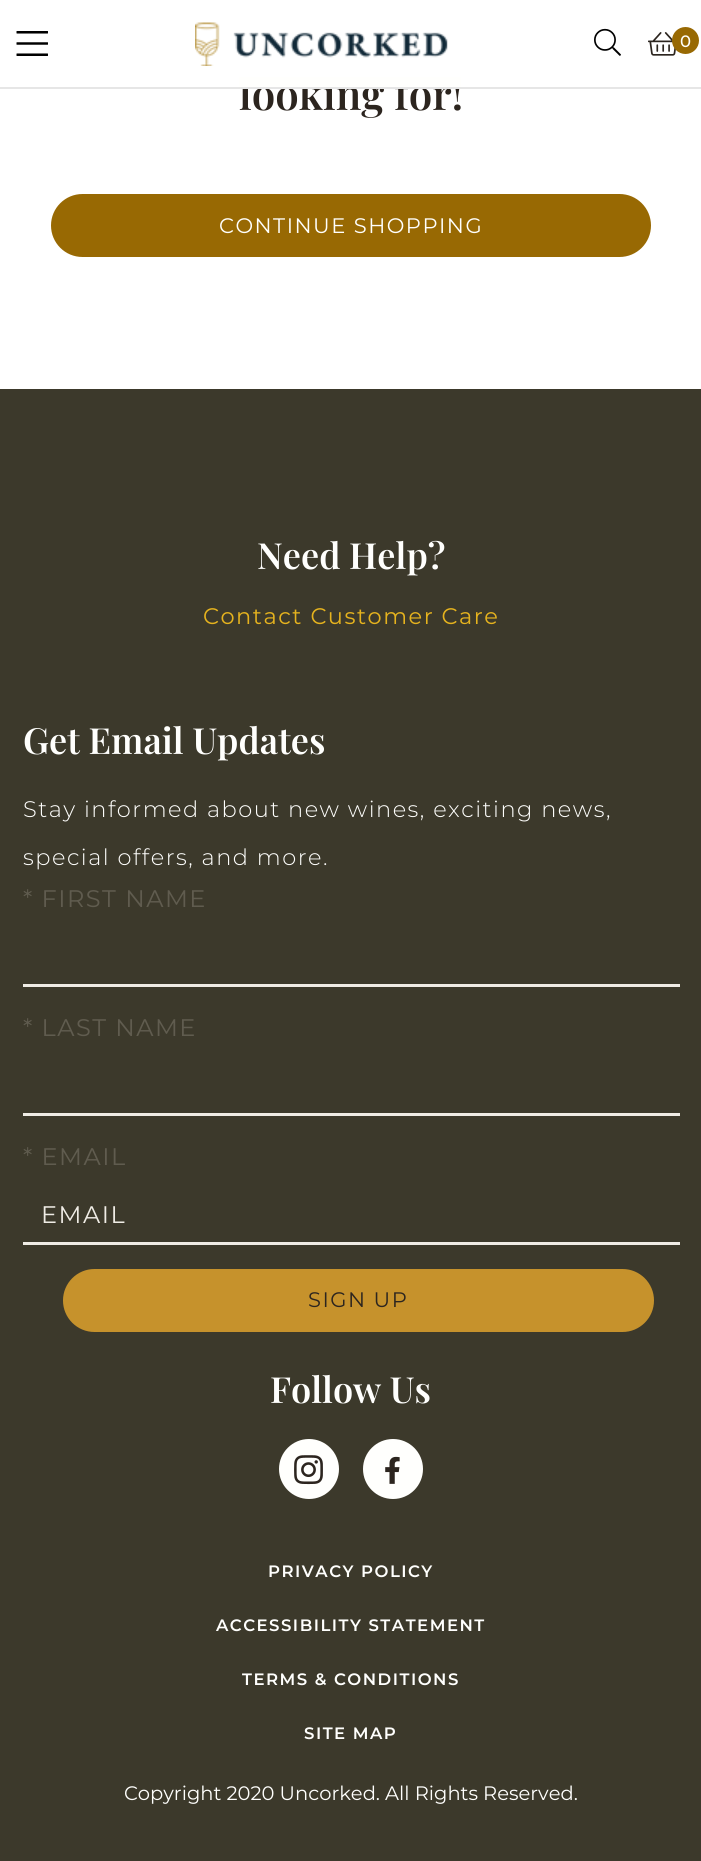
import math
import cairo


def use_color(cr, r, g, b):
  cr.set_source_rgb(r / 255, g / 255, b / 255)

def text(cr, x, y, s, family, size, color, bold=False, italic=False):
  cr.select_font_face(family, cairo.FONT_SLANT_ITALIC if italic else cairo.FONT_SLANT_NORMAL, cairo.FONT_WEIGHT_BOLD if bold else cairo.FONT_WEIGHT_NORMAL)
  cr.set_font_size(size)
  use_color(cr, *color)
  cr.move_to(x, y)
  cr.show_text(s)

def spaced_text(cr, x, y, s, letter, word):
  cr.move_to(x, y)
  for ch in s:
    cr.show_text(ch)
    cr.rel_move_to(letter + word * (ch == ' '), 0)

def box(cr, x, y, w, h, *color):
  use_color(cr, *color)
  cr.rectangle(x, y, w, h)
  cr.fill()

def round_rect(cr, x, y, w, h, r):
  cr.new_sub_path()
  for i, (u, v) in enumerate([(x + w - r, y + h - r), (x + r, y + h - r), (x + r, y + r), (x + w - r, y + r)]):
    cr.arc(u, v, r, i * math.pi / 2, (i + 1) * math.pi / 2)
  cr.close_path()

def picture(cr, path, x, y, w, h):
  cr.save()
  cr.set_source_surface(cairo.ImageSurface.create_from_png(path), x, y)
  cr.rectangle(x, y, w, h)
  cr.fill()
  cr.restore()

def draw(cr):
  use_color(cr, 255, 255, 255)
  cr.paint()
  picture(cr, "img_01.png", 16, 31, 32, 25)
  picture(cr, "img_02.png", 195, 22, 253, 44)
  picture(cr, "img_03.png", 594, 28, 27, 28)
  picture(cr, "img_04.png", 648, 32, 28, 24)
  use_color(cr, 152, 105, 3)
  cr.arc(685.5, 40.5, 13.5, 0, 2 * math.pi)
  cr.fill()
  round_rect(cr, 52.5, 195.5, 597, 60, 30)
  cr.fill_preserve()
  cr.set_line_width(3)
  cr.stroke()
  box(cr, 0, 389, 701, 1472, 60, 57, 43)
  box(cr, 23, 984, 657, 3, 239, 236, 229)
  box(cr, 23, 1113, 657, 3, 239, 236, 229)
  box(cr, 23, 1242, 657, 3, 239, 236, 229)
  use_color(cr, 198, 146, 44)
  round_rect(cr, 64.5, 1270.5, 588, 60, 30)
  cr.fill_preserve()
  cr.stroke()
  use_color(cr, 255, 255, 253)
  cr.arc(309, 1469, 30, 0, 2 * math.pi)
  cr.fill()
  picture(cr, "img_05.png", 294, 1455, 29, 30)
  cr.arc(393, 1469, 30, 0, 2 * math.pi)
  cr.fill()
  picture(cr, "img_06.png", 385, 1456, 15, 28)
  cr.select_font_face("Montserrat Medium")
  cr.set_font_size(16.5)
  spaced_text(cr, 680, 47, "0", -2, 0)
  text(cr, 239, 110, "looking for!", "Playfair Display SemiBold", 42, (44, 37, 31))
  box(cr, 0, 87, 701, 2, 230, 230, 230)
  box(cr, 239, 77, 222, 10, 255, 255, 253)
  cr.select_font_face("Montserrat")
  cr.set_font_size(21)
  spaced_text(cr, 219, 233, "CONTINUE SHOPPING", 1.5, 0)
  text(cr, 257, 569, "Need Help?", "Playfair Display SemiBold", 36, (255, 255, 253))
  cr.select_font_face("Montserrat")
  cr.set_font_size(22.5)
  use_color(cr, 230, 179, 30)
  spaced_text(cr, 203, 624, "Contact Customer Care", 1.5, 0)
  text(cr, 23, 754, "Get Email Updates", "Playfair Display SemiBold", 36, (255, 255, 253))
  cr.select_font_face("Montserrat Light")
  cr.set_font_size(22.5)
  spaced_text(cr, 23, 817, "Stay informed about new wines, exciting news,", 1.5, 0)
  spaced_text(cr, 23, 865, "special offers, and more.", 1.5, 0)
  cr.select_font_face("Montserrat")
  cr.set_font_size(24)
  use_color(cr, 96, 92, 79)
  spaced_text(cr, 23, 907, "* FIRST NAME", 1.5, 0)
  spaced_text(cr, 23, 1036, "* LAST NAME", 1.5, 0)
  spaced_text(cr, 23, 1165, "* EMAIL", 1.5, 0)
  use_color(cr, 239, 236, 229)
  spaced_text(cr, 41, 1223, "EMAIL", 1.5, 0)
  cr.set_font_size(21)
  use_color(cr, 44, 37, 31)
  spaced_text(cr, 308, 1307, "SIGN UP", 1.5, 0)
  text(cr, 270, 1403, "Follow Us", "Playfair Display SemiBold", 36, (255, 255, 253))
  cr.select_font_face("Montserrat SemiBold")
  cr.set_font_size(16.5)
  spaced_text(cr, 268, 1577, "PRIVACY POLICY", 1.5, 0)
  spaced_text(cr, 216, 1631, "ACCESSIBILITY STATEMENT", 1.5, 0)
  spaced_text(cr, 242, 1685, "TERMS & CONDITIONS", 1.5, 0)
  spaced_text(cr, 304, 1739, "SITE MAP", 1.5, 0)
  text(cr, 124, 1800, "Copyright 2020 Uncorked. All Rights Reserved.", "Montserrat", 19.5, (255, 255, 253))


surface = cairo.ImageSurface(cairo.FORMAT_RGB24, 701, 1861)
cr = cairo.Context(surface)
options = cairo.FontOptions()
options.set_hint_metrics(cairo.HINT_METRICS_OFF)
options.set_hint_style(cairo.HINT_STYLE_NONE)
cr.set_font_options(options)
cr.set_miter_limit(4)
draw(cr)
surface.write_to_png("out.png")
